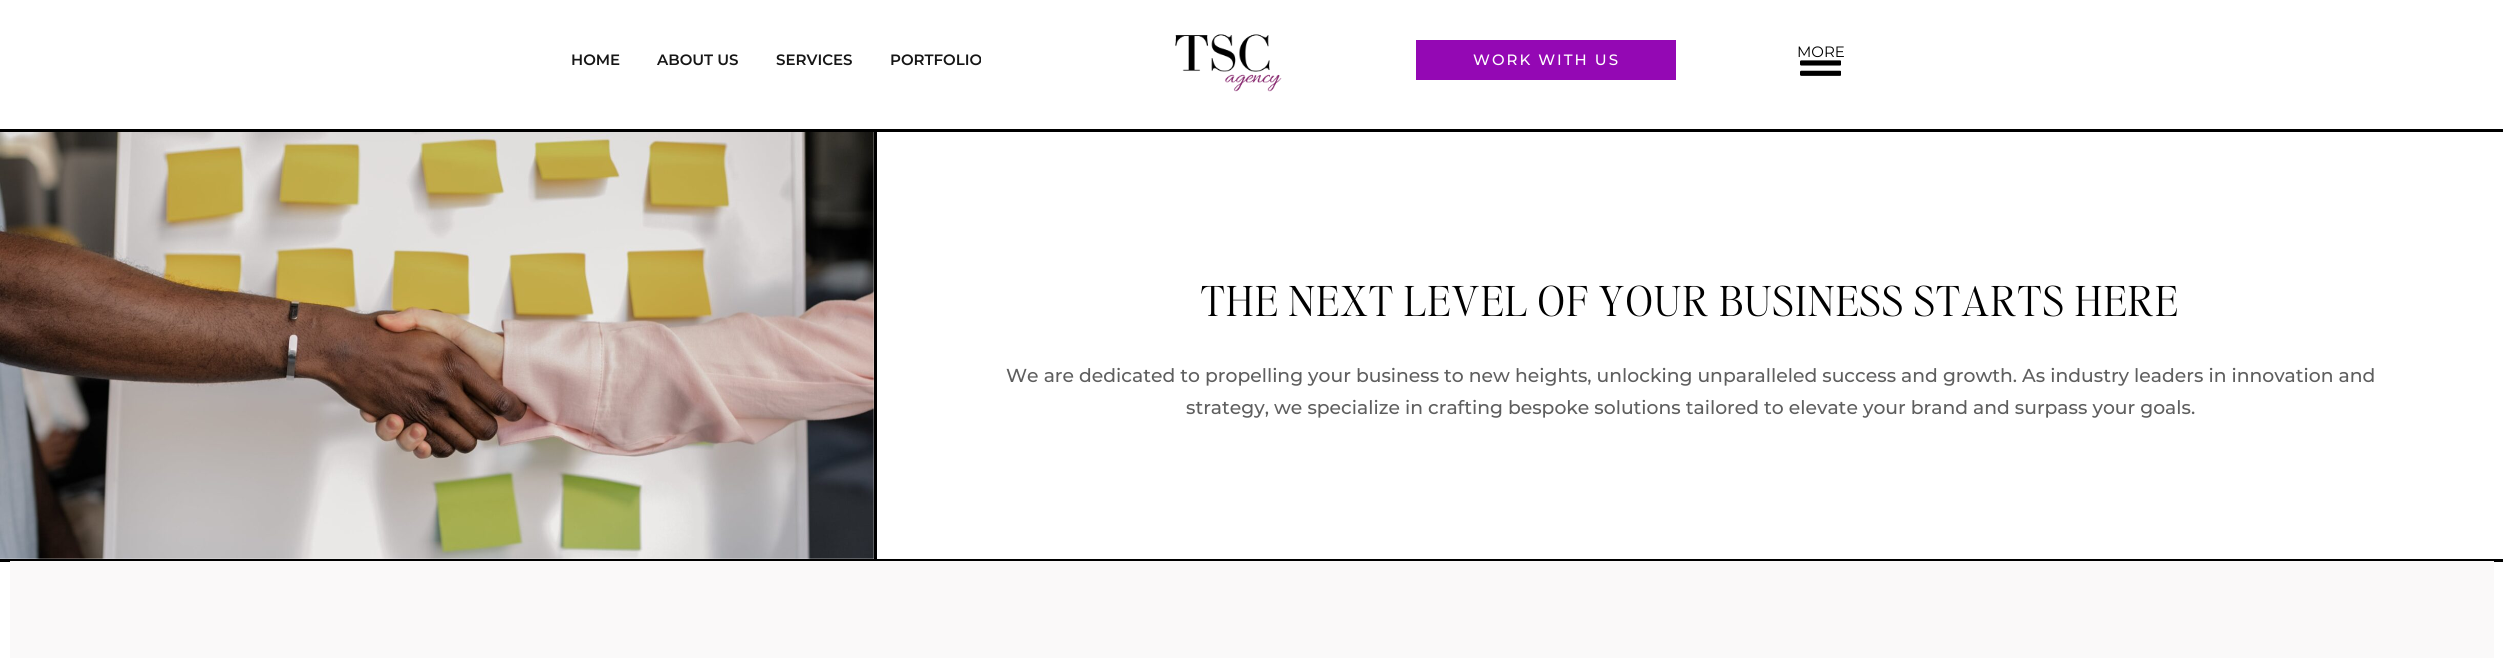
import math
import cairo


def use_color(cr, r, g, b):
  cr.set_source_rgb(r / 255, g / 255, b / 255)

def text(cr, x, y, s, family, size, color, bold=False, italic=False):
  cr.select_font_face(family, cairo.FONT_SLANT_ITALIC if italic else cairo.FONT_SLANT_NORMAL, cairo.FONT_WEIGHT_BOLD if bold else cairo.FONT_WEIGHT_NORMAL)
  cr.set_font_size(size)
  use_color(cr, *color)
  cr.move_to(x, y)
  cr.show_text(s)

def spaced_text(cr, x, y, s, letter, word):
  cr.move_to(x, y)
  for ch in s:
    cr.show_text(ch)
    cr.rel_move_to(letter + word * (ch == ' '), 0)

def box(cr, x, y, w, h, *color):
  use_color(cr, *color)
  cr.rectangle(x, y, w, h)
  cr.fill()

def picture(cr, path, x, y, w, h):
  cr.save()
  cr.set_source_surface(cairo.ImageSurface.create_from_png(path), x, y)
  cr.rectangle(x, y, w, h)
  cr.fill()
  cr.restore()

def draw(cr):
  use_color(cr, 255, 255, 255)
  cr.paint()
  box(cr, 0, 129, 2503, 3, 0, 0, 0)
  picture(cr, "img_01.png", 1175, 34, 107, 58)
  picture(cr, "img_02.png", 1800, 60, 41, 16)
  box(cr, 1416, 40, 260, 40, 148, 8, 180)
  box(cr, 0, 559, 2503, 3, 0, 0, 0)
  picture(cr, "img_03.png", 0, 132, 874, 427)
  box(cr, 874, 132, 3, 427, 0, 0, 0)
  box(cr, 10, 561, 2484, 97, 250, 249, 249)
  text(cr, 571, 65, "HOME", "Montserrat SemiBold", 15, (22, 22, 22))
  text(cr, 657, 65, "ABOUT US", "Montserrat SemiBold", 15, (22, 22, 22))
  text(cr, 776, 65, "SERVICES", "Montserrat SemiBold", 15, (22, 22, 22))
  text(cr, 890, 65, "PORTFOLIO", "Montserrat SemiBold", 15, (22, 22, 22))
  text(cr, 1797, 57, "MORE", "Montserrat", 15, (0, 0, 0))
  cr.select_font_face("Montserrat Medium")
  use_color(cr, 255, 255, 255)
  spaced_text(cr, 1473, 65, "WORK WITH US", 2, 0)
  cr.select_font_face("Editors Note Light")
  cr.set_font_size(41.25)
  use_color(cr, 0, 0, 0)
  spaced_text(cr, 1201, 316, "THE NEXT LEVEL OF YOUR BUSINESS STARTS HERE", 1.6, 0)
  text(cr, 1006, 382, "We are dedicated to propelling your business to new heights, unlocking unparalleled success and growth. As industry leaders in innovation and", "Montserrat Medium", 18.75, (94, 94, 94))
  text(cr, 1186, 414, "strategy, we specialize in crafting bespoke solutions tailored to elevate your brand and surpass your goals.", "Montserrat Medium", 18.75, (94, 94, 94))


surface = cairo.ImageSurface(cairo.FORMAT_RGB24, 2503, 658)
cr = cairo.Context(surface)
options = cairo.FontOptions()
options.set_hint_metrics(cairo.HINT_METRICS_OFF)
options.set_hint_style(cairo.HINT_STYLE_NONE)
cr.set_font_options(options)
cr.set_miter_limit(4)
draw(cr)
surface.write_to_png("out.png")
